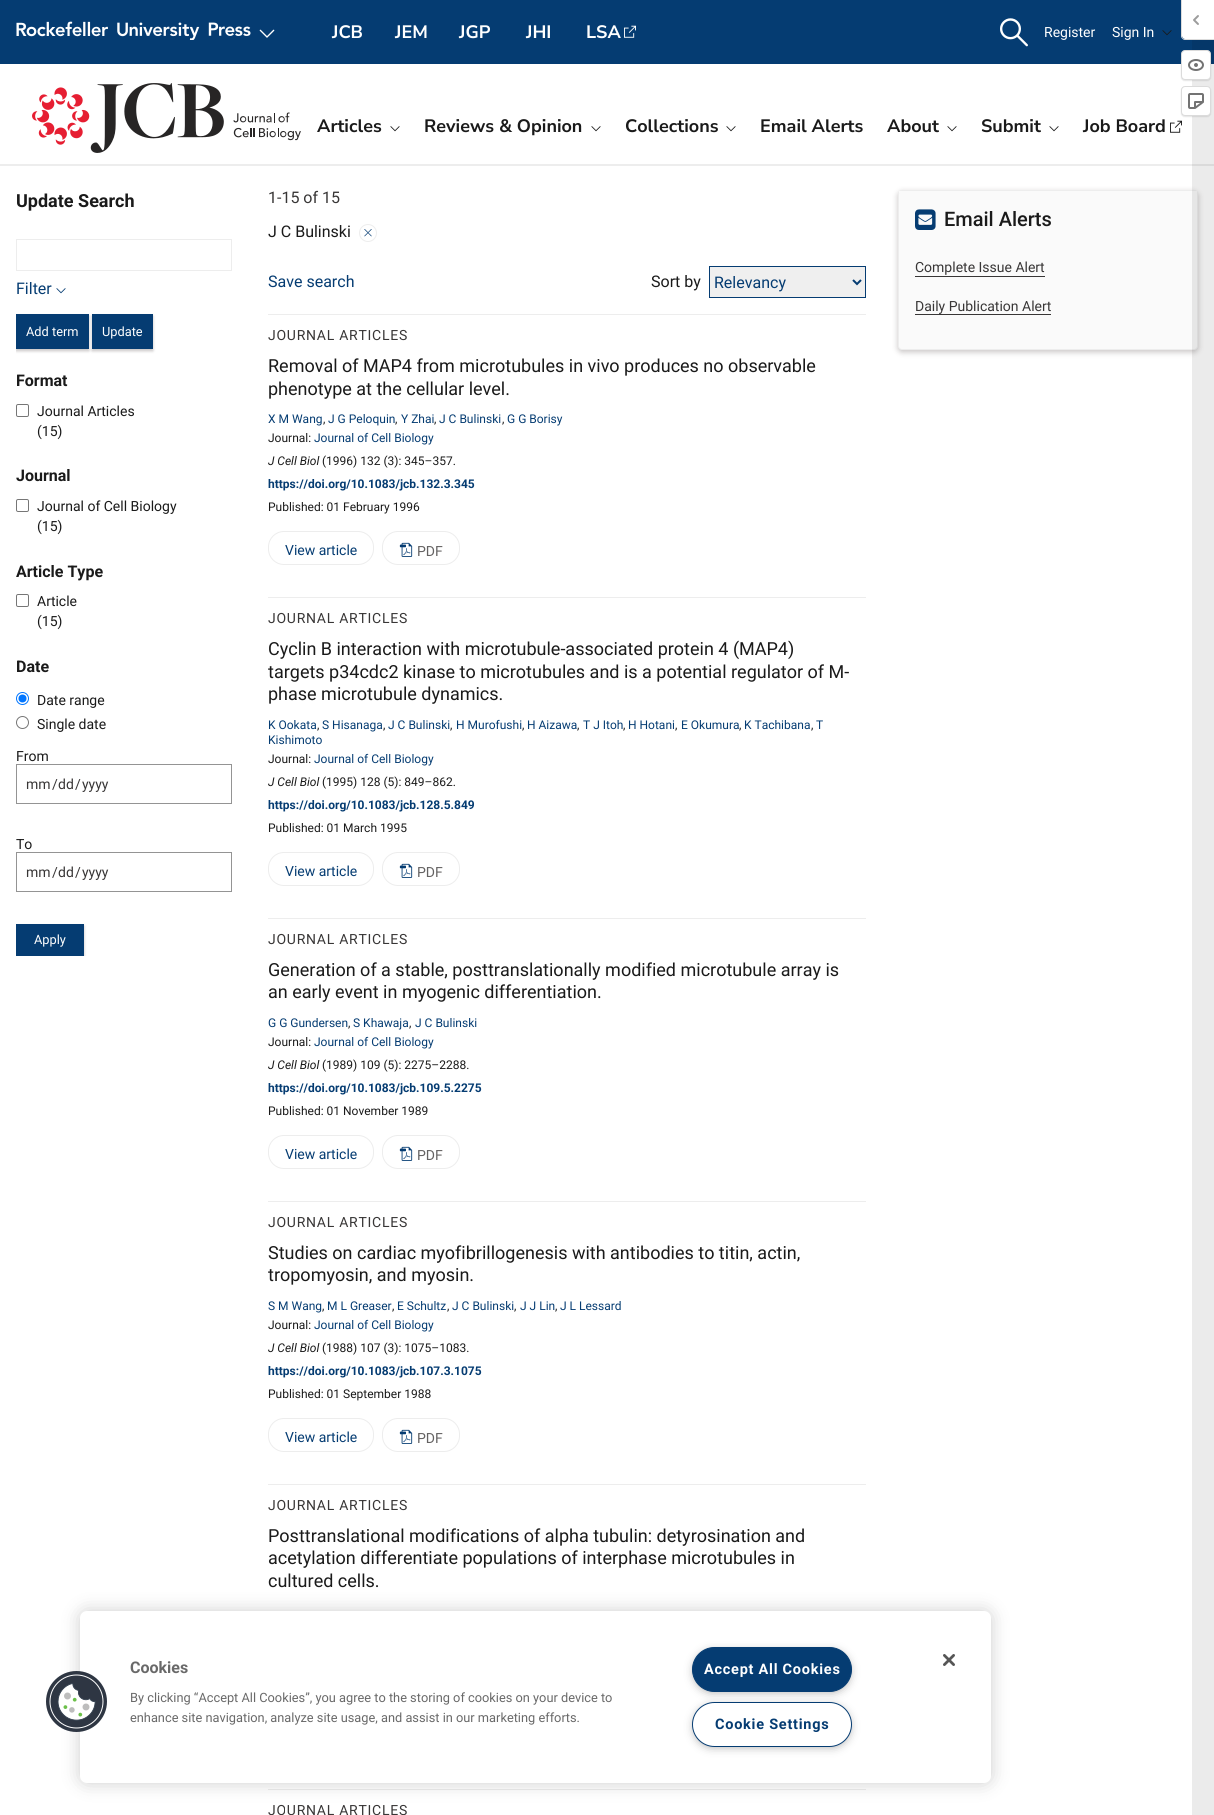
import math
import cairo


def use_color(cr, r, g, b):
  cr.set_source_rgb(r / 255, g / 255, b / 255)

def text(cr, x, y, s, family, size, color, bold=False, italic=False):
  cr.select_font_face(family, cairo.FONT_SLANT_ITALIC if italic else cairo.FONT_SLANT_NORMAL, cairo.FONT_WEIGHT_BOLD if bold else cairo.FONT_WEIGHT_NORMAL)
  cr.set_font_size(size)
  use_color(cr, *color)
  cr.move_to(x, y)
  cr.show_text(s)

def spaced_text(cr, x, y, s, letter, word):
  cr.move_to(x, y)
  for ch in s:
    cr.show_text(ch)
    cr.rel_move_to(letter + word * (ch == ' '), 0)

def box(cr, x, y, w, h, *color):
  use_color(cr, *color)
  cr.rectangle(x, y, w, h)
  cr.fill()

def round_rect(cr, x, y, w, h, r):
  cr.new_sub_path()
  for i, (u, v) in enumerate([(x + w - r, y + h - r), (x + r, y + h - r), (x + r, y + r), (x + w - r, y + r)]):
    cr.arc(u, v, r, i * math.pi / 2, (i + 1) * math.pi / 2)
  cr.close_path()

def shadow(cr, x, y, w, h, r, blur, alpha):
  cr.push_group_with_content(cairo.CONTENT_ALPHA)
  cr.set_operator(cairo.OPERATOR_SOURCE)
  for i in range(15, -16, -2):
    e = blur * i / 6
    if min(w, h) + 2 * e > 0:
      cr.set_source_rgba(0, 0, 0, alpha * math.erfc((i - 1) / 8.5) / 2)
      round_rect(cr, x - e, y - e, w + 2 * e, h + 2 * e, max(0, min(r + e + blur * .6, min(w, h) / 2 + e)))
      cr.fill()
  cr.mask(cr.pop_group())

def picture(cr, path, x, y, w, h):
  cr.save()
  cr.set_source_surface(cairo.ImageSurface.create_from_png(path), x, y)
  cr.rectangle(x, y, w, h)
  cr.fill()
  cr.restore()

def draw(cr):
  use_color(cr, 255, 255, 255)
  cr.paint()
  box(cr, 0, 0, 1214, 64, 5, 60, 114)
  picture(cr, "img_01.png", 16, 21, 235, 19)
  picture(cr, "img_02.png", 259, 29, 16, 9)
  picture(cr, "img_03.png", 624, 25, 12, 13)
  picture(cr, "img_04.png", 1000, 18, 28, 29)
  picture(cr, "img_05.png", 1162, 30, 10, 6)
  box(cr, 0, 164, 1214, 2, 237, 237, 237)
  picture(cr, "img_06.png", 32, 83, 269, 70)
  picture(cr, "img_07.png", 390, 126, 10, 6)
  picture(cr, "img_07.png", 591, 126, 10, 6)
  picture(cr, "img_07.png", 726, 126, 10, 6)
  picture(cr, "img_07.png", 947, 126, 10, 6)
  picture(cr, "img_07.png", 1049, 126, 10, 6)
  picture(cr, "img_08.png", 1170, 120, 12, 13)
  use_color(cr, 67, 56, 56)
  shadow(cr, 898, 192, 300, 160, 4, 3, 0.3)
  use_color(cr, 250, 250, 250)
  round_rect(cr, 898.5, 190.5, 299, 159, 3.5)
  cr.fill_preserve()
  use_color(cr, 237, 237, 237)
  cr.set_line_width(1)
  cr.stroke()
  box(cr, 899, 191, 298, 2, 250, 250, 250)
  cr.set_source_rgba(0, 0, 0, 0.08)
  cr.rectangle(1192, 40, 22, 1775)
  cr.fill()
  use_color(cr, 255, 255, 255)
  cr.new_path()
  cr.move_to(1182, 0)
  cr.line_to(1214, 0)
  cr.line_to(1214, 39)
  cr.line_to(1185, 39)
  cr.curve_to(1183.5, 39, 1182, 37.5, 1182, 36)
  cr.close_path()
  cr.fill()
  use_color(cr, 219, 219, 219)
  cr.set_fill_rule(cairo.FILL_RULE_EVEN_ODD)
  cr.new_path()
  cr.move_to(1181, 0)
  cr.line_to(1214, 0)
  cr.line_to(1214, 40)
  cr.line_to(1185, 40)
  cr.curve_to(1183, 40, 1181, 38, 1181, 36)
  cr.close_path()
  cr.move_to(1182, 0)
  cr.line_to(1214, 0)
  cr.line_to(1214, 39)
  cr.line_to(1185, 39)
  cr.curve_to(1183, 39, 1182, 38, 1182, 36)
  cr.close_path()
  cr.fill()
  picture(cr, "img_09.png", 1193, 15, 6, 10)
  use_color(cr, 0, 0, 0)
  shadow(cr, 1181, 51, 30, 30, 4, 0.5, 0.1)
  use_color(cr, 255, 255, 255)
  round_rect(cr, 1181.5, 50.5, 29, 29, 3.5)
  cr.fill_preserve()
  use_color(cr, 219, 219, 219)
  cr.stroke()
  picture(cr, "img_10.png", 1188, 59, 16, 12)
  use_color(cr, 0, 0, 0)
  shadow(cr, 1181, 87, 30, 30, 4, 0.5, 0.1)
  use_color(cr, 255, 255, 255)
  round_rect(cr, 1181.5, 86.5, 29, 29, 3.5)
  cr.fill_preserve()
  use_color(cr, 219, 219, 219)
  cr.stroke()
  picture(cr, "img_11.png", 1188, 93, 16, 16)
  cr.rectangle(16.5, 239.5, 215, 31)
  use_color(cr, 237, 237, 237)
  cr.stroke()
  picture(cr, "img_12.png", 56, 288, 10, 6)
  cr.save()
  cr.set_fill_rule(cairo.FILL_RULE_WINDING)
  cr.rectangle(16, 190, 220, 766)
  cr.clip()
  use_color(cr, 67, 56, 56)
  shadow(cr, 16, 316, 73, 35, 0, 1.5, 0.3)
  cr.restore()
  box(cr, 16, 314, 73, 35, 5, 60, 114)
  use_color(cr, 67, 56, 56)
  shadow(cr, 92, 316, 61, 35, 0, 1.5, 0.3)
  box(cr, 92, 314, 61, 35, 5, 60, 114)
  round_rect(cr, 16.5, 404.5, 12, 12, 1.5)
  use_color(cr, 118, 118, 118)
  cr.stroke()
  round_rect(cr, 16.5, 499.5, 12, 12, 1.5)
  cr.stroke()
  round_rect(cr, 16.5, 594.5, 12, 12, 1.5)
  cr.stroke()
  cr.arc(22.5, 698.5, 6, 0, 2 * math.pi)
  use_color(cr, 0, 117, 255)
  cr.stroke()
  cr.arc(22.5, 698.5, 4, 0, 2 * math.pi)
  cr.fill()
  cr.arc(22.5, 722.5, 6, 0, 2 * math.pi)
  use_color(cr, 118, 118, 118)
  cr.stroke()
  cr.rectangle(16.5, 764.5, 215, 39)
  use_color(cr, 148, 148, 148)
  cr.stroke()
  cr.rectangle(16.5, 852.5, 215, 39)
  cr.stroke()
  cr.save()
  cr.set_fill_rule(cairo.FILL_RULE_WINDING)
  cr.rectangle(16, 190, 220, 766)
  cr.clip()
  use_color(cr, 67, 56, 56)
  shadow(cr, 16, 926, 68, 32, 0, 1.5, 0.3)
  cr.restore()
  box(cr, 16, 924, 68, 32, 5, 60, 114)
  cr.arc(368, 233, 8.5, 0, 2 * math.pi)
  use_color(cr, 237, 237, 237)
  cr.stroke()
  picture(cr, "img_13.png", 364, 229, 8, 8)
  use_color(cr, 239, 239, 239)
  cr.rectangle(709.5, 266.5, 156, 31)
  cr.fill_preserve()
  use_color(cr, 5, 60, 114)
  cr.stroke()
  cr.new_path()
  cr.move_to(853, 280)
  cr.line_to(857, 284)
  cr.line_to(861, 280)
  cr.set_line_width(2)
  cr.stroke()
  box(cr, 268, 314, 598, 1, 237, 237, 237)
  round_rect(cr, 268.5, 531.5, 105, 33, 15.5)
  cr.set_line_width(1)
  cr.stroke()
  round_rect(cr, 382.5, 531.5, 77, 33, 15.5)
  cr.stroke()
  picture(cr, "img_14.png", 399, 542, 14, 15)
  box(cr, 268, 597, 598, 1, 237, 237, 237)
  round_rect(cr, 268.5, 852.5, 105, 33, 15.5)
  cr.stroke()
  round_rect(cr, 382.5, 852.5, 77, 33, 15.5)
  cr.stroke()
  picture(cr, "img_14.png", 399, 863, 14, 15)
  box(cr, 268, 918, 598, 1, 237, 237, 237)
  round_rect(cr, 268.5, 1135.5, 105, 33, 15.5)
  cr.stroke()
  round_rect(cr, 382.5, 1135.5, 77, 33, 15.5)
  cr.stroke()
  picture(cr, "img_14.png", 399, 1146, 14, 15)
  box(cr, 268, 1201, 598, 1, 237, 237, 237)
  round_rect(cr, 268.5, 1418.5, 105, 33, 15.5)
  cr.stroke()
  round_rect(cr, 382.5, 1418.5, 77, 33, 15.5)
  cr.stroke()
  picture(cr, "img_14.png", 399, 1429, 14, 15)
  box(cr, 268, 1484, 598, 1, 237, 237, 237)
  box(cr, 268, 1789, 598, 1, 237, 237, 237)
  picture(cr, "img_15.png", 915, 209, 21, 21)
  box(cr, 915, 276, 130, 1, 56, 54, 54)
  box(cr, 915, 314, 136, 1, 56, 54, 54)
  use_color(cr, 0, 0, 0)
  shadow(cr, 80, 1611, 911, 172, 7, 9, 0.2)
  use_color(cr, 255, 255, 255)
  round_rect(cr, 80, 1611, 911, 172, 7)
  cr.fill()
  picture(cr, "img_16.png", 46, 1671, 61, 61)
  use_color(cr, 153, 153, 153)
  shadow(cr, 695, 1652, 154, 39, 19.5, 5, 1)
  use_color(cr, 5, 60, 114)
  round_rect(cr, 692.5, 1647.5, 159, 44, 22)
  cr.fill_preserve()
  cr.stroke()
  use_color(cr, 153, 153, 153)
  shadow(cr, 695, 1707, 154, 39, 19.5, 5, 1)
  use_color(cr, 255, 255, 255)
  round_rect(cr, 692.5, 1702.5, 159, 44, 22)
  cr.fill_preserve()
  use_color(cr, 5, 60, 114)
  cr.stroke()
  picture(cr, "img_17.png", 943, 1654, 12, 12)
  text(cr, 332, 38, "JCB", "Nunito Sans", 18, (255, 255, 255), bold=True)
  text(cr, 395, 38, "JEM", "Nunito Sans", 18, (255, 255, 255), bold=True)
  text(cr, 459, 38, "JGP", "Nunito Sans", 18, (255, 255, 255), bold=True)
  text(cr, 526, 38, "JHI", "Nunito Sans", 18, (255, 255, 255), bold=True)
  text(cr, 586, 38, "LSA", "Nunito Sans", 18, (255, 255, 255), bold=True)
  text(cr, 1044, 37, "Register", "Roboto", 14, (255, 255, 255))
  text(cr, 1112, 37, "Sign In", "Roboto", 14, (255, 255, 255))
  text(cr, 317, 132, "Articles", "Nunito Sans", 18, (26, 26, 26), bold=True)
  text(cr, 424, 132, "Reviews & Opinion", "Nunito Sans", 18, (26, 26, 26), bold=True)
  text(cr, 625, 132, "Collections", "Nunito Sans", 18, (26, 26, 26), bold=True)
  text(cr, 760, 132, "Email Alerts", "Nunito Sans", 18, (26, 26, 26), bold=True)
  text(cr, 887, 132, "About", "Nunito Sans", 18, (26, 26, 26), bold=True)
  text(cr, 981, 132, "Submit", "Nunito Sans", 18, (26, 26, 26), bold=True)
  text(cr, 1083, 132, "Job Board", "Nunito Sans", 18, (26, 26, 26), bold=True)
  text(cr, 16, 207, "Update Search", "Roboto", 18, (26, 26, 26), bold=True)
  text(cr, 16, 294, "Filter", "Roboto", 16, (5, 60, 114))
  text(cr, 26, 336, "Add term", "Roboto", 12.8, (255, 255, 255))
  text(cr, 102, 336, "Update", "Roboto", 12.8, (255, 255, 255))
  text(cr, 16, 386, "Format", "Roboto", 16, (26, 26, 26), bold=True)
  text(cr, 37, 416, "Journal Articles", "Roboto", 14, (26, 26, 26))
  text(cr, 37, 436, "(15)", "Roboto", 14, (26, 26, 26))
  text(cr, 16, 481, "Journal", "Roboto", 16, (26, 26, 26), bold=True)
  text(cr, 37, 511, "Journal of Cell Biology", "Roboto", 14, (26, 26, 26))
  text(cr, 37, 531, "(15)", "Roboto", 14, (26, 26, 26))
  text(cr, 16, 577, "Article Type", "Roboto", 16, (26, 26, 26), bold=True)
  text(cr, 37, 606, "Article", "Roboto", 14, (26, 26, 26))
  text(cr, 37, 626, "(15)", "Roboto", 14, (26, 26, 26))
  text(cr, 16, 672, "Date", "Roboto", 16, (26, 26, 26), bold=True)
  text(cr, 37, 705, "Date range", "Roboto", 14, (26, 26, 26))
  text(cr, 37, 729, "Single date", "Roboto", 14, (26, 26, 26))
  text(cr, 16, 761, "From", "Roboto", 14, (26, 26, 26))
  text(cr, 26, 789, "mm", "Roboto", 14, (56, 54, 54))
  text(cr, 52, 789, "/", "Roboto", 14, (56, 54, 54))
  text(cr, 58, 789, "dd", "Roboto", 14, (56, 54, 54))
  text(cr, 75, 789, "/", "Roboto", 14, (56, 54, 54))
  text(cr, 82, 789, "yyyy", "Roboto", 14, (56, 54, 54))
  text(cr, 16, 849, "To", "Roboto", 14, (26, 26, 26))
  text(cr, 26, 877, "mm", "Roboto", 14, (56, 54, 54))
  text(cr, 52, 877, "/", "Roboto", 14, (56, 54, 54))
  text(cr, 58, 877, "dd", "Roboto", 14, (56, 54, 54))
  text(cr, 75, 877, "/", "Roboto", 14, (56, 54, 54))
  text(cr, 82, 877, "yyyy", "Roboto", 14, (56, 54, 54))
  text(cr, 34, 944, "Apply", "Roboto", 12.8, (255, 255, 255))
  text(cr, 268, 203, "1-15 of 15", "Roboto", 16, (56, 54, 54))
  text(cr, 268, 237, "J C Bulinski", "Roboto", 16, (26, 26, 26))
  text(cr, 268, 287, "Save search", "Roboto", 16, (5, 60, 114))
  text(cr, 651, 287, "Sort by", "Roboto", 16, (26, 26, 26))
  text(cr, 714, 288, "Relevancy", "Roboto", 16, (5, 60, 114))
  cr.set_font_size(14)
  use_color(cr, 56, 54, 54)
  spaced_text(cr, 268, 340, "JOURNAL ARTICLES", 0.75, 0)
  text(cr, 268, 372, "Removal of MAP4 from microtubules in vivo produces no observable", "Roboto", 18, (26, 26, 26))
  text(cr, 268, 395, "phenotype at the cellular level.", "Roboto", 18, (26, 26, 26))
  text(cr, 268, 423, "X M Wang", "Roboto", 12, (5, 60, 114))
  text(cr, 323, 423, ",", "Roboto", 12, (26, 26, 26))
  text(cr, 328, 423, "J G Peloquin", "Roboto", 12, (5, 60, 114))
  text(cr, 395, 423, ",", "Roboto", 12, (26, 26, 26))
  text(cr, 401, 423, "Y Zhai", "Roboto", 12, (5, 60, 114))
  text(cr, 434, 423, ",", "Roboto", 12, (26, 26, 26))
  text(cr, 439, 423, "J C Bulinski", "Roboto", 12, (5, 60, 114))
  text(cr, 502, 423, ",", "Roboto", 12, (26, 26, 26))
  text(cr, 507, 423, "G G Borisy", "Roboto", 12, (5, 60, 114))
  text(cr, 268, 442, "Journal:", "Roboto", 12, (26, 26, 26))
  text(cr, 314, 442, "Journal of Cell Biology", "Roboto", 12, (5, 60, 114))
  text(cr, 268, 465, "J Cell Biol", "Roboto", 12, (26, 26, 26), italic=True)
  text(cr, 322, 465, "(1996) 132 (3): 345–357.", "Roboto", 12, (26, 26, 26))
  text(cr, 268, 488, "https://doi.org/10.1083/jcb.132.3.345", "Roboto", 12, (5, 60, 114), bold=True)
  text(cr, 268, 511, "Published: 01 February 1996", "Roboto", 12, (26, 26, 26))
  text(cr, 285, 555, "View article", "Roboto", 14, (5, 60, 114))
  text(cr, 417, 556, "PDF", "Roboto", 14, (100, 98, 98))
  use_color(cr, 56, 54, 54)
  spaced_text(cr, 268, 623, "JOURNAL ARTICLES", 0.75, 0)
  text(cr, 268, 655, "Cyclin B interaction with microtubule-associated protein 4 (MAP4)", "Roboto", 18, (26, 26, 26))
  text(cr, 268, 678, "targets p34cdc2 kinase to microtubules and is a potential regulator of M-", "Roboto", 18, (26, 26, 26))
  text(cr, 268, 700, "phase microtubule dynamics.", "Roboto", 18, (26, 26, 26))
  text(cr, 268, 729, "K Ookata", "Roboto", 12, (5, 60, 114))
  text(cr, 317, 729, ",", "Roboto", 12, (26, 26, 26))
  text(cr, 322, 729, "S Hisanaga", "Roboto", 12, (5, 60, 114))
  text(cr, 383, 729, ",", "Roboto", 12, (26, 26, 26))
  text(cr, 388, 729, "J C Bulinski", "Roboto", 12, (5, 60, 114))
  text(cr, 450, 729, ",", "Roboto", 12, (26, 26, 26))
  text(cr, 456, 729, "H Murofushi", "Roboto", 12, (5, 60, 114))
  text(cr, 522, 729, ",", "Roboto", 12, (26, 26, 26))
  text(cr, 527, 729, "H Aizawa", "Roboto", 12, (5, 60, 114))
  text(cr, 577, 729, ",", "Roboto", 12, (26, 26, 26))
  text(cr, 583, 729, "T J Itoh", "Roboto", 12, (5, 60, 114))
  text(cr, 623, 729, ",", "Roboto", 12, (26, 26, 26))
  text(cr, 628, 729, "H Hotani", "Roboto", 12, (5, 60, 114))
  text(cr, 675, 729, ",", "Roboto", 12, (26, 26, 26))
  text(cr, 681, 729, "E Okumura", "Roboto", 12, (5, 60, 114))
  text(cr, 739, 729, ",", "Roboto", 12, (26, 26, 26))
  text(cr, 744, 729, "K Tachibana", "Roboto", 12, (5, 60, 114))
  text(cr, 811, 729, ",", "Roboto", 12, (26, 26, 26))
  text(cr, 816, 729, "T", "Roboto", 12, (5, 60, 114))
  text(cr, 268, 744, "Kishimoto", "Roboto", 12, (5, 60, 114))
  text(cr, 268, 763, "Journal:", "Roboto", 12, (26, 26, 26))
  text(cr, 314, 763, "Journal of Cell Biology", "Roboto", 12, (5, 60, 114))
  text(cr, 268, 786, "J Cell Biol", "Roboto", 12, (26, 26, 26), italic=True)
  text(cr, 322, 786, "(1995) 128 (5): 849–862.", "Roboto", 12, (26, 26, 26))
  text(cr, 268, 809, "https://doi.org/10.1083/jcb.128.5.849", "Roboto", 12, (5, 60, 114), bold=True)
  text(cr, 268, 832, "Published: 01 March 1995", "Roboto", 12, (26, 26, 26))
  text(cr, 285, 876, "View article", "Roboto", 14, (5, 60, 114))
  text(cr, 417, 877, "PDF", "Roboto", 14, (100, 98, 98))
  use_color(cr, 56, 54, 54)
  spaced_text(cr, 268, 944, "JOURNAL ARTICLES", 0.75, 0)
  text(cr, 268, 976, "Generation of a stable, posttranslationally modified microtubule array is", "Roboto", 18, (26, 26, 26))
  text(cr, 268, 998, "an early event in myogenic differentiation.", "Roboto", 18, (26, 26, 26))
  text(cr, 268, 1027, "G G Gundersen", "Roboto", 12, (5, 60, 114))
  text(cr, 348, 1027, ",", "Roboto", 12, (26, 26, 26))
  text(cr, 353, 1027, "S Khawaja", "Roboto", 12, (5, 60, 114))
  text(cr, 409, 1027, ",", "Roboto", 12, (26, 26, 26))
  text(cr, 415, 1027, "J C Bulinski", "Roboto", 12, (5, 60, 114))
  text(cr, 268, 1046, "Journal:", "Roboto", 12, (26, 26, 26))
  text(cr, 314, 1046, "Journal of Cell Biology", "Roboto", 12, (5, 60, 114))
  text(cr, 268, 1069, "J Cell Biol", "Roboto", 12, (26, 26, 26), italic=True)
  text(cr, 322, 1069, "(1989) 109 (5): 2275–2288.", "Roboto", 12, (26, 26, 26))
  text(cr, 268, 1092, "https://doi.org/10.1083/jcb.109.5.2275", "Roboto", 12, (5, 60, 114), bold=True)
  text(cr, 268, 1115, "Published: 01 November 1989", "Roboto", 12, (26, 26, 26))
  text(cr, 285, 1159, "View article", "Roboto", 14, (5, 60, 114))
  text(cr, 417, 1160, "PDF", "Roboto", 14, (100, 98, 98))
  use_color(cr, 56, 54, 54)
  spaced_text(cr, 268, 1227, "JOURNAL ARTICLES", 0.75, 0)
  text(cr, 268, 1259, "Studies on cardiac myofibrillogenesis with antibodies to titin, actin,", "Roboto", 18, (26, 26, 26))
  text(cr, 268, 1281, "tropomyosin, and myosin.", "Roboto", 18, (26, 26, 26))
  text(cr, 268, 1310, "S M Wang", "Roboto", 12, (5, 60, 114))
  text(cr, 322, 1310, ",", "Roboto", 12, (26, 26, 26))
  text(cr, 327, 1310, "M L Greaser", "Roboto", 12, (5, 60, 114))
  text(cr, 392, 1310, ",", "Roboto", 12, (26, 26, 26))
  text(cr, 397, 1310, "E Schultz", "Roboto", 12, (5, 60, 114))
  text(cr, 447, 1310, ",", "Roboto", 12, (26, 26, 26))
  text(cr, 452, 1310, "J C Bulinski", "Roboto", 12, (5, 60, 114))
  text(cr, 514, 1310, ",", "Roboto", 12, (26, 26, 26))
  text(cr, 520, 1310, "J J Lin", "Roboto", 12, (5, 60, 114))
  text(cr, 555, 1310, ",", "Roboto", 12, (26, 26, 26))
  text(cr, 560, 1310, "J L Lessard", "Roboto", 12, (5, 60, 114))
  text(cr, 268, 1329, "Journal:", "Roboto", 12, (26, 26, 26))
  text(cr, 314, 1329, "Journal of Cell Biology", "Roboto", 12, (5, 60, 114))
  text(cr, 268, 1352, "J Cell Biol", "Roboto", 12, (26, 26, 26), italic=True)
  text(cr, 322, 1352, "(1988) 107 (3): 1075–1083.", "Roboto", 12, (26, 26, 26))
  text(cr, 268, 1375, "https://doi.org/10.1083/jcb.107.3.1075", "Roboto", 12, (5, 60, 114), bold=True)
  text(cr, 268, 1398, "Published: 01 September 1988", "Roboto", 12, (26, 26, 26))
  text(cr, 285, 1442, "View article", "Roboto", 14, (5, 60, 114))
  text(cr, 417, 1443, "PDF", "Roboto", 14, (100, 98, 98))
  use_color(cr, 56, 54, 54)
  spaced_text(cr, 268, 1510, "JOURNAL ARTICLES", 0.75, 0)
  text(cr, 268, 1542, "Posttranslational modifications of alpha tubulin: detyrosination and", "Roboto", 18, (26, 26, 26))
  text(cr, 268, 1564, "acetylation differentiate populations of interphase microtubules in", "Roboto", 18, (26, 26, 26))
  text(cr, 268, 1587, "cultured cells.", "Roboto", 18, (26, 26, 26))
  cr.set_font_size(14)
  use_color(cr, 56, 54, 54)
  spaced_text(cr, 268, 1815, "JOURNAL ARTICLES", 0.75, 0)
  text(cr, 944, 226, "Email Alerts", "Roboto Medium", 20, (26, 26, 26))
  text(cr, 915, 272, "Complete Issue Alert", "Roboto", 14, (56, 54, 54))
  text(cr, 915, 311, "Daily Publication Alert", "Roboto", 14, (56, 54, 54))
  text(cr, 130, 1673, "Cookies", "Roboto", 16, (105, 105, 105), bold=True)
  text(cr, 130, 1702, "By clicking “Accept All Cookies”, you agree to the storing of cookies on your device to", "Roboto", 12.8, (105, 105, 105))
  text(cr, 130, 1722, "enhance site navigation, analyze site usage, and assist in our marketing efforts.", "Roboto", 12.8, (105, 105, 105))
  cr.select_font_face("Roboto", cairo.FONT_SLANT_NORMAL, cairo.FONT_WEIGHT_BOLD)
  cr.set_font_size(14.5)
  use_color(cr, 255, 255, 255)
  spaced_text(cr, 704, 1674, "Accept All Cookies", 0.75, 0)
  use_color(cr, 5, 60, 114)
  spaced_text(cr, 715, 1729, "Cookie Settings", 0.75, 0)


surface = cairo.ImageSurface(cairo.FORMAT_RGB24, 1214, 1815)
cr = cairo.Context(surface)
options = cairo.FontOptions()
options.set_hint_metrics(cairo.HINT_METRICS_OFF)
options.set_hint_style(cairo.HINT_STYLE_NONE)
cr.set_font_options(options)
cr.set_miter_limit(4)
draw(cr)
surface.write_to_png("out.png")
